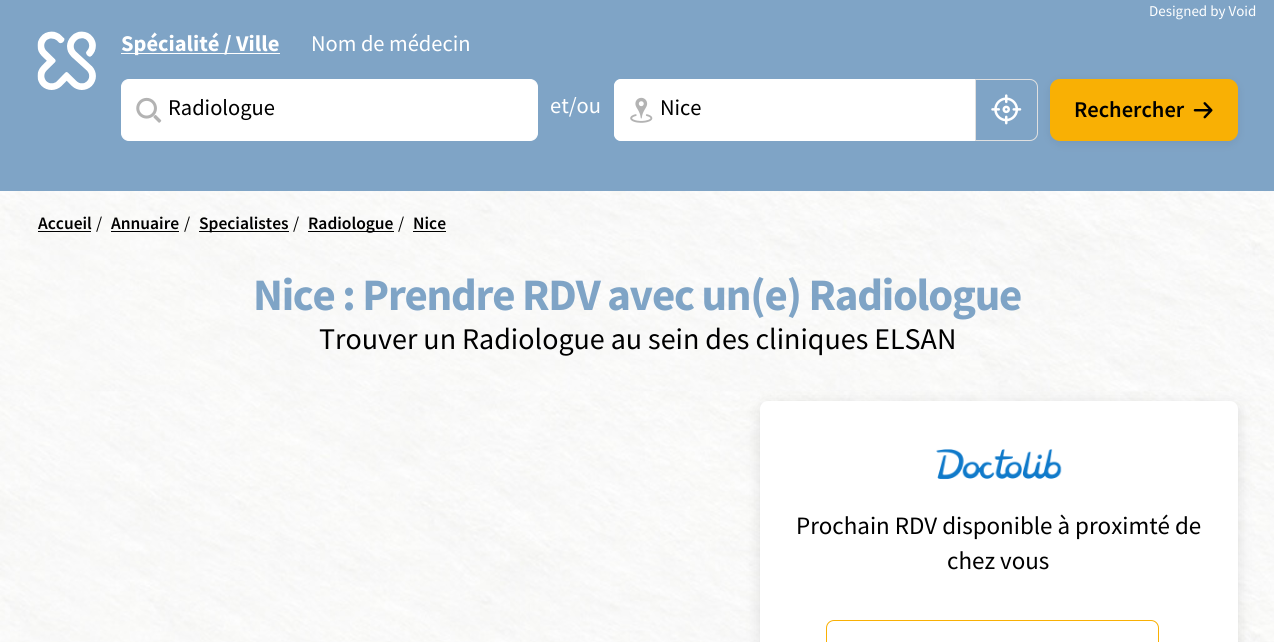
import math
import cairo


def use_color(cr, r, g, b):
  cr.set_source_rgb(r / 255, g / 255, b / 255)

def text(cr, x, y, s, family, size, color, bold=False, italic=False):
  cr.select_font_face(family, cairo.FONT_SLANT_ITALIC if italic else cairo.FONT_SLANT_NORMAL, cairo.FONT_WEIGHT_BOLD if bold else cairo.FONT_WEIGHT_NORMAL)
  cr.set_font_size(size)
  use_color(cr, *color)
  cr.move_to(x, y)
  cr.show_text(s)

def spaced_text(cr, x, y, s, letter, word):
  cr.move_to(x, y)
  for ch in s:
    cr.show_text(ch)
    cr.rel_move_to(letter + word * (ch == ' '), 0)

def box(cr, x, y, w, h, *color):
  use_color(cr, *color)
  cr.rectangle(x, y, w, h)
  cr.fill()

def round_rect(cr, x, y, w, h, r):
  cr.new_sub_path()
  for i, (u, v) in enumerate([(x + w - r, y + h - r), (x + r, y + h - r), (x + r, y + r), (x + w - r, y + r)]):
    cr.arc(u, v, r, i * math.pi / 2, (i + 1) * math.pi / 2)
  cr.close_path()

def shadow(cr, x, y, w, h, r, blur, alpha):
  cr.push_group_with_content(cairo.CONTENT_ALPHA)
  cr.set_operator(cairo.OPERATOR_SOURCE)
  for i in range(15, -16, -2):
    e = blur * i / 6
    if min(w, h) + 2 * e > 0:
      cr.set_source_rgba(0, 0, 0, alpha * math.erfc((i - 1) / 8.5) / 2)
      round_rect(cr, x - e, y - e, w + 2 * e, h + 2 * e, max(0, min(r + e + blur * .6, min(w, h) / 2 + e)))
      cr.fill()
  cr.mask(cr.pop_group())

def picture(cr, path, x, y, w, h):
  cr.save()
  cr.set_source_surface(cairo.ImageSurface.create_from_png(path), x, y)
  cr.rectangle(x, y, w, h)
  cr.fill()
  cr.restore()

def draw(cr):
  use_color(cr, 255, 255, 255)
  cr.paint()
  picture(cr, "img_01.png", 0, 191, 1274, 451)
  box(cr, 0, 0, 1274, 191, 127, 164, 198)
  picture(cr, "img_02.png", 37, 31, 59, 59)
  box(cr, 121, 53, 159, 1, 255, 255, 255)
  round_rect(cr, 121.5, 79.5, 416, 61, 7.5)
  cr.fill_preserve()
  cr.set_line_width(1)
  cr.stroke()
  picture(cr, "img_03.png", 136, 97, 26, 26)
  cr.new_path()
  cr.move_to(622, 79)
  cr.line_to(975, 79)
  cr.line_to(975, 141)
  cr.line_to(622, 141)
  cr.curve_to(617.5, 141, 614, 137.5, 614, 133)
  cr.line_to(614, 87)
  cr.curve_to(614, 82.5, 617.5, 79, 622, 79)
  cr.close_path()
  cr.fill()
  cr.set_fill_rule(cairo.FILL_RULE_EVEN_ODD)
  cr.new_path()
  cr.move_to(621, 79)
  cr.line_to(975, 79)
  cr.line_to(975, 141)
  cr.line_to(621, 141)
  cr.curve_to(617, 141, 614, 138, 614, 134)
  cr.line_to(614, 86)
  cr.curve_to(614, 82, 617, 79, 621, 79)
  cr.close_path()
  cr.move_to(621, 80)
  cr.line_to(975, 80)
  cr.line_to(975, 140)
  cr.line_to(621, 140)
  cr.curve_to(618, 140, 615, 137, 615, 134)
  cr.line_to(615, 86)
  cr.curve_to(615, 83, 618, 80, 621, 80)
  cr.close_path()
  cr.fill()
  picture(cr, "img_04.png", 630, 97, 23, 26)
  cr.new_path()
  cr.move_to(975.5, 79.5)
  cr.line_to(1030, 79.5)
  cr.curve_to(1034, 79.5, 1037.5, 83, 1037.5, 87)
  cr.line_to(1037.5, 133)
  cr.curve_to(1037.5, 137, 1034, 140.5, 1030, 140.5)
  cr.line_to(975.5, 140.5)
  cr.close_path()
  use_color(cr, 224, 224, 224)
  cr.stroke()
  picture(cr, "img_05.png", 991, 94, 31, 31)
  use_color(cr, 0, 0, 0)
  shadow(cr, 1050, 81, 188, 63, 10, 5, 0.07)
  use_color(cr, 249, 176, 4)
  round_rect(cr, 1050.5, 79.5, 187, 61, 9.5)
  cr.fill_preserve()
  cr.stroke()
  picture(cr, "img_06.png", 1193, 102, 20, 17)
  box(cr, 38, 231, 53, 1, 0, 0, 0)
  box(cr, 111, 231, 68, 1, 0, 0, 0)
  box(cr, 199, 231, 90, 1, 0, 0, 0)
  box(cr, 308, 231, 86, 1, 0, 0, 0)
  box(cr, 413, 231, 33, 1, 0, 0, 0)
  use_color(cr, 0, 0, 0)
  shadow(cr, 760, 404, 478, 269, 8, 7.5, 0.11)
  use_color(cr, 255, 255, 255)
  round_rect(cr, 760, 401, 478, 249, 8)
  cr.fill()
  picture(cr, "img_07.png", 936, 449, 126, 31)
  round_rect(cr, 826.5, 620.5, 332, 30, 7.5)
  use_color(cr, 249, 176, 4)
  cr.stroke()
  text(cr, 1149, 16, "Designed by Void", "Source Sans Pro", 15, (255, 255, 255))
  text(cr, 121, 51, "Spécialité / Ville", "Source Sans Pro", 22.5, (255, 255, 255), bold=True)
  text(cr, 311, 51, "Nom de médecin", "Source Sans Pro", 22.5, (255, 255, 255))
  text(cr, 168, 115, "Radiologue", "Source Sans Pro", 22.5, (0, 0, 0))
  text(cr, 550, 113, "et/ou", "Source Sans Pro", 22.5, (255, 255, 255))
  text(cr, 660, 115, "Nice", "Source Sans Pro", 22.5, (0, 0, 0))
  text(cr, 1074, 117, "Rechercher", "Source Sans Pro SemiBold", 22.5, (0, 0, 0))
  text(cr, 38, 229, "Accueil", "Source Sans Pro SemiBold", 17.5, (0, 0, 0))
  text(cr, 96, 229, "/", "Source Sans Pro", 17.5, (0, 0, 0))
  text(cr, 111, 229, "Annuaire", "Source Sans Pro SemiBold", 17.5, (0, 0, 0))
  text(cr, 184, 229, "/", "Source Sans Pro", 17.5, (0, 0, 0))
  text(cr, 199, 229, "Specialistes", "Source Sans Pro SemiBold", 17.5, (0, 0, 0))
  text(cr, 293, 229, "/", "Source Sans Pro", 17.5, (0, 0, 0))
  text(cr, 308, 229, "Radiologue", "Source Sans Pro SemiBold", 17.5, (0, 0, 0))
  text(cr, 398, 229, "/", "Source Sans Pro", 17.5, (0, 0, 0))
  text(cr, 413, 229, "Nice", "Source Sans Pro SemiBold", 17.5, (0, 0, 0))
  cr.select_font_face("Source Sans Pro", cairo.FONT_SLANT_NORMAL, cairo.FONT_WEIGHT_BOLD)
  cr.set_font_size(45)
  use_color(cr, 127, 164, 198)
  spaced_text(cr, 253, 310, "Nice : Prendre RDV avec un(e) Radiologue", -1.25, 0)
  text(cr, 319, 349, "Trouver un Radiologue au sein des cliniques ELSAN", "Source Sans Pro", 30, (0, 0, 0))
  text(cr, 796, 534, "Prochain RDV disponible à proximté de", "Source Sans Pro", 25, (0, 0, 0))
  text(cr, 947, 569, "chez vous", "Source Sans Pro", 25, (0, 0, 0))


surface = cairo.ImageSurface(cairo.FORMAT_RGB24, 1274, 642)
cr = cairo.Context(surface)
options = cairo.FontOptions()
options.set_hint_metrics(cairo.HINT_METRICS_OFF)
options.set_hint_style(cairo.HINT_STYLE_NONE)
cr.set_font_options(options)
cr.set_miter_limit(4)
draw(cr)
surface.write_to_png("out.png")
